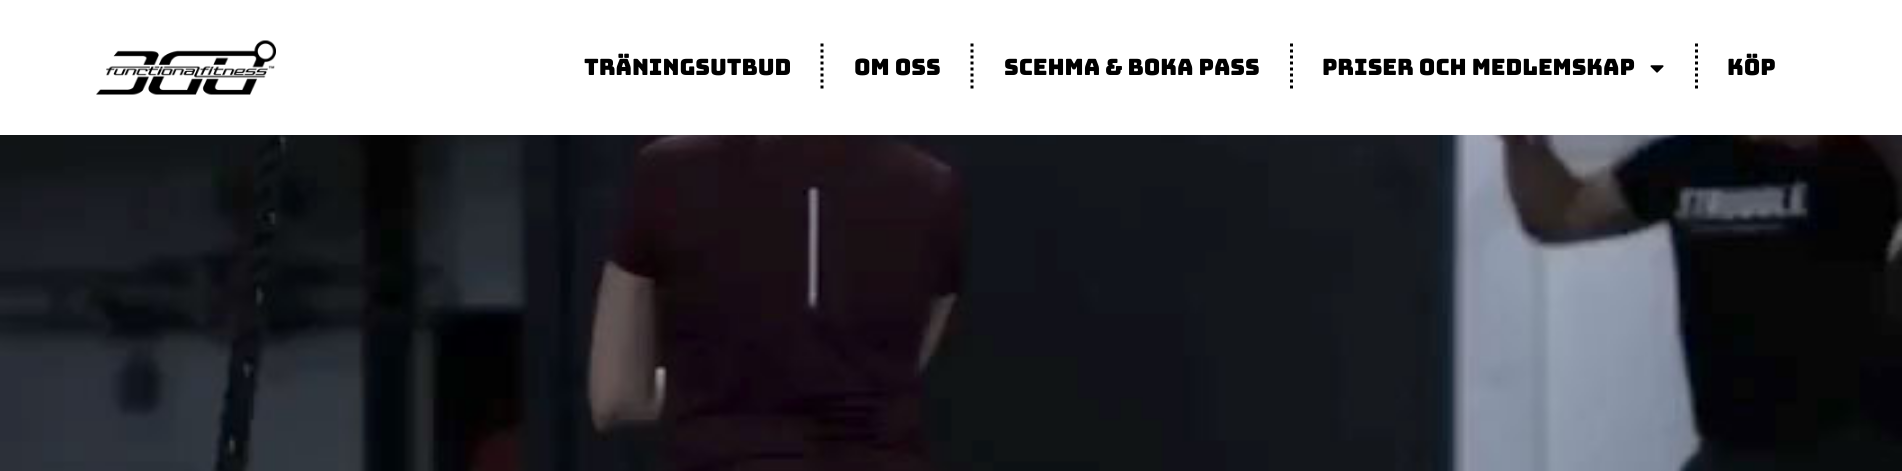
import math
import cairo


def use_color(cr, r, g, b):
  cr.set_source_rgb(r / 255, g / 255, b / 255)

def text(cr, x, y, s, family, size, color, bold=False, italic=False):
  cr.select_font_face(family, cairo.FONT_SLANT_ITALIC if italic else cairo.FONT_SLANT_NORMAL, cairo.FONT_WEIGHT_BOLD if bold else cairo.FONT_WEIGHT_NORMAL)
  cr.set_font_size(size)
  use_color(cr, *color)
  cr.move_to(x, y)
  cr.show_text(s)

def picture(cr, path, x, y, w, h):
  cr.save()
  cr.set_source_surface(cairo.ImageSurface.create_from_png(path), x, y)
  cr.rectangle(x, y, w, h)
  cr.fill()
  cr.restore()

def draw(cr):
  use_color(cr, 255, 255, 255)
  cr.paint()
  picture(cr, "img_01.png", 96, 40, 180, 55)
  cr.new_path()
  cr.move_to(822, 43.5)
  cr.line_to(822, 91.5)
  use_color(cr, 0, 0, 0)
  cr.set_line_width(3)
  cr.set_dash([3, 3])
  cr.stroke()
  cr.new_path()
  cr.move_to(972, 43.5)
  cr.line_to(972, 91.5)
  cr.stroke()
  cr.new_path()
  cr.move_to(1291.5, 43.5)
  cr.line_to(1291.5, 91.5)
  cr.stroke()
  picture(cr, "img_02.png", 1650, 65, 14, 8)
  cr.new_path()
  cr.move_to(1696.5, 43.5)
  cr.line_to(1696.5, 91.5)
  cr.stroke()
  picture(cr, "img_03.png", 0, 135, 1902, 336)
  text(cr, 584, 75, "Träningsutbud", "Bungee", 22.5, (0, 0, 0))
  text(cr, 854, 75, "Om oss", "Bungee", 22.5, (0, 0, 0))
  text(cr, 1004, 75, "Scehma & boka pass", "Bungee", 22.5, (0, 0, 0))
  text(cr, 1322, 75, "Priser och medlemskap", "Bungee", 22.5, (0, 0, 0))
  text(cr, 1727, 75, "Köp", "Bungee", 22.5, (0, 0, 0))


surface = cairo.ImageSurface(cairo.FORMAT_RGB24, 1902, 471)
cr = cairo.Context(surface)
options = cairo.FontOptions()
options.set_hint_metrics(cairo.HINT_METRICS_OFF)
options.set_hint_style(cairo.HINT_STYLE_NONE)
cr.set_font_options(options)
cr.set_miter_limit(4)
draw(cr)
surface.write_to_png("out.png")
